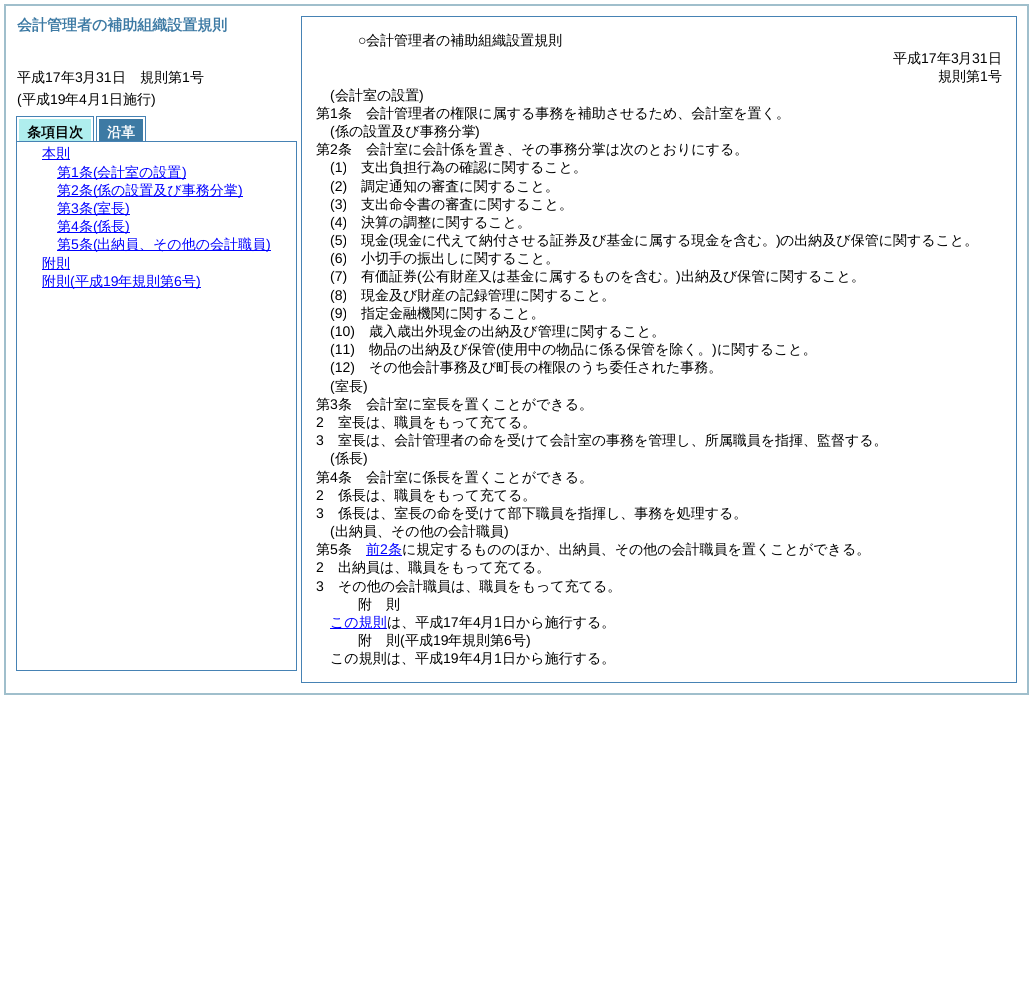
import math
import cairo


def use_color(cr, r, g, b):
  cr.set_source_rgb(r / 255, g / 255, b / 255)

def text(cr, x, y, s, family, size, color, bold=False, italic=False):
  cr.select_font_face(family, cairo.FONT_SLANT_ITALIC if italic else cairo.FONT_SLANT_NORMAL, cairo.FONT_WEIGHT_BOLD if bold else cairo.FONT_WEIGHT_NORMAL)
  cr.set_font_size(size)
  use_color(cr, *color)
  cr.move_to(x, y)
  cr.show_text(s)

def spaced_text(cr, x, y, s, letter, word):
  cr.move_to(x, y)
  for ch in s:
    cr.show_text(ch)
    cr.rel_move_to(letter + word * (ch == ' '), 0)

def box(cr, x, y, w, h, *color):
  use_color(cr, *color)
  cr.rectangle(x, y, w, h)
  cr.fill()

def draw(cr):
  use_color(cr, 255, 255, 255)
  cr.paint()
  cr.rectangle(5, 5, 1023, 689)
  use_color(cr, 160, 191, 204)
  cr.stroke()
  box(cr, 16, 116, 78, 1, 70, 130, 180)
  box(cr, 93, 116, 1, 26, 70, 130, 180)
  box(cr, 16, 116, 1, 26, 70, 130, 180)
  box(cr, 19, 119, 72, 22, 175, 238, 238)
  box(cr, 96, 116, 50, 1, 70, 130, 180)
  box(cr, 145, 116, 1, 26, 70, 130, 180)
  box(cr, 96, 116, 1, 26, 70, 130, 180)
  box(cr, 99, 119, 44, 22, 61, 122, 164)
  cr.rectangle(16.5, 141.5, 280, 529)
  use_color(cr, 70, 130, 180)
  cr.set_line_width(1)
  cr.stroke()
  box(cr, 42, 159, 28, 1, 0, 0, 255)
  box(cr, 57, 178, 129, 1, 0, 0, 255)
  box(cr, 57, 196, 186, 1, 0, 0, 255)
  box(cr, 57, 214, 73, 1, 0, 0, 255)
  box(cr, 57, 232, 73, 1, 0, 0, 255)
  box(cr, 57, 250, 214, 1, 0, 0, 255)
  box(cr, 42, 269, 28, 1, 0, 0, 255)
  box(cr, 42, 287, 159, 1, 0, 0, 255)
  cr.rectangle(301.5, 16.5, 715, 666)
  use_color(cr, 70, 130, 180)
  cr.stroke()
  box(cr, 366, 555, 36, 1, 0, 0, 255)
  box(cr, 330, 628, 57, 1, 0, 0, 255)
  text(cr, 17, 30, "会計管理者の補助組織設置規則", "WenQuanYi Zen Hei", 15, (61, 122, 164), bold=True)
  text(cr, 17, 82, "平成", "WenQuanYi Zen Hei Medium", 14, (0, 0, 0))
  text(cr, 45, 82, "17", "Liberation Sans", 14, (0, 0, 0))
  text(cr, 61, 82, "年", "WenQuanYi Zen Hei Medium", 14, (0, 0, 0))
  text(cr, 75, 82, "3", "Liberation Sans", 14, (0, 0, 0))
  text(cr, 82, 82, "月", "WenQuanYi Zen Hei Medium", 14, (0, 0, 0))
  text(cr, 96, 82, "31", "Liberation Sans", 14, (0, 0, 0))
  text(cr, 112, 82, "日　規則第", "WenQuanYi Zen Hei Medium", 14, (0, 0, 0))
  text(cr, 182, 82, "1", "Liberation Sans", 14, (0, 0, 0))
  text(cr, 190, 82, "号", "WenQuanYi Zen Hei Medium", 14, (0, 0, 0))
  text(cr, 17, 104, "(", "Liberation Sans", 14, (0, 0, 0))
  text(cr, 22, 104, "平成", "WenQuanYi Zen Hei Medium", 14, (0, 0, 0))
  text(cr, 50, 104, "19", "Liberation Sans", 14, (0, 0, 0))
  text(cr, 65, 104, "年", "WenQuanYi Zen Hei Medium", 14, (0, 0, 0))
  text(cr, 79, 104, "4", "Liberation Sans", 14, (0, 0, 0))
  text(cr, 87, 104, "月", "WenQuanYi Zen Hei Medium", 14, (0, 0, 0))
  text(cr, 101, 104, "1", "Liberation Sans", 14, (0, 0, 0))
  text(cr, 109, 104, "日施行", "WenQuanYi Zen Hei Medium", 14, (0, 0, 0))
  text(cr, 151, 104, ")", "Liberation Sans", 14, (0, 0, 0))
  text(cr, 27, 137, "条項目次", "WenQuanYi Zen Hei", 14, (0, 0, 0), bold=True)
  text(cr, 107, 137, "沿革", "WenQuanYi Zen Hei", 14, (255, 255, 255), bold=True)
  text(cr, 42, 158, "本則", "WenQuanYi Zen Hei Medium", 14, (0, 0, 255))
  text(cr, 57, 177, "第", "WenQuanYi Zen Hei Medium", 14, (0, 0, 255))
  text(cr, 71, 177, "1", "Liberation Sans", 14, (0, 0, 255))
  text(cr, 79, 177, "条", "WenQuanYi Zen Hei Medium", 14, (0, 0, 255))
  text(cr, 93, 177, "(", "Liberation Sans", 14, (0, 0, 255))
  text(cr, 97, 177, "会計室の設置", "WenQuanYi Zen Hei Medium", 14, (0, 0, 255))
  text(cr, 182, 177, ")", "Liberation Sans", 14, (0, 0, 255))
  text(cr, 57, 195, "第", "WenQuanYi Zen Hei Medium", 14, (0, 0, 255))
  text(cr, 71, 195, "2", "Liberation Sans", 14, (0, 0, 255))
  text(cr, 79, 195, "条", "WenQuanYi Zen Hei Medium", 14, (0, 0, 255))
  text(cr, 93, 195, "(", "Liberation Sans", 14, (0, 0, 255))
  text(cr, 97, 195, "係の設置及び事務分掌", "WenQuanYi Zen Hei Medium", 14, (0, 0, 255))
  text(cr, 238, 195, ")", "Liberation Sans", 14, (0, 0, 255))
  text(cr, 57, 213, "第", "WenQuanYi Zen Hei Medium", 14, (0, 0, 255))
  text(cr, 71, 213, "3", "Liberation Sans", 14, (0, 0, 255))
  text(cr, 79, 213, "条", "WenQuanYi Zen Hei Medium", 14, (0, 0, 255))
  text(cr, 93, 213, "(", "Liberation Sans", 14, (0, 0, 255))
  text(cr, 97, 213, "室長", "WenQuanYi Zen Hei Medium", 14, (0, 0, 255))
  text(cr, 125, 213, ")", "Liberation Sans", 14, (0, 0, 255))
  text(cr, 57, 231, "第", "WenQuanYi Zen Hei Medium", 14, (0, 0, 255))
  text(cr, 71, 231, "4", "Liberation Sans", 14, (0, 0, 255))
  text(cr, 79, 231, "条", "WenQuanYi Zen Hei Medium", 14, (0, 0, 255))
  text(cr, 93, 231, "(", "Liberation Sans", 14, (0, 0, 255))
  text(cr, 97, 231, "係長", "WenQuanYi Zen Hei Medium", 14, (0, 0, 255))
  text(cr, 125, 231, ")", "Liberation Sans", 14, (0, 0, 255))
  text(cr, 57, 249, "第", "WenQuanYi Zen Hei Medium", 14, (0, 0, 255))
  text(cr, 71, 249, "5", "Liberation Sans", 14, (0, 0, 255))
  text(cr, 79, 249, "条", "WenQuanYi Zen Hei Medium", 14, (0, 0, 255))
  text(cr, 93, 249, "(", "Liberation Sans", 14, (0, 0, 255))
  text(cr, 97, 249, "出納員、その他の会計職員", "WenQuanYi Zen Hei Medium", 14, (0, 0, 255))
  text(cr, 266, 249, ")", "Liberation Sans", 14, (0, 0, 255))
  text(cr, 42, 268, "附則", "WenQuanYi Zen Hei Medium", 14, (0, 0, 255))
  text(cr, 42, 286, "附則", "WenQuanYi Zen Hei Medium", 14, (0, 0, 255))
  text(cr, 70, 286, "(", "Liberation Sans", 14, (0, 0, 255))
  text(cr, 75, 286, "平成", "WenQuanYi Zen Hei Medium", 14, (0, 0, 255))
  text(cr, 103, 286, "19", "Liberation Sans", 14, (0, 0, 255))
  text(cr, 118, 286, "年規則第", "WenQuanYi Zen Hei Medium", 14, (0, 0, 255))
  text(cr, 174, 286, "6", "Liberation Sans", 14, (0, 0, 255))
  text(cr, 182, 286, "号", "WenQuanYi Zen Hei Medium", 14, (0, 0, 255))
  text(cr, 196, 286, ")", "Liberation Sans", 14, (0, 0, 255))
  text(cr, 358, 45, "○", "Liberation Sans", 14, (0, 0, 0))
  text(cr, 366, 45, "会計管理者の補助組織設置規則", "WenQuanYi Zen Hei Medium", 14, (0, 0, 0))
  text(cr, 893, 63, "平成", "WenQuanYi Zen Hei Medium", 14, (0, 0, 0))
  text(cr, 921, 63, "17", "Liberation Sans", 14, (0, 0, 0))
  text(cr, 937, 63, "年", "WenQuanYi Zen Hei Medium", 14, (0, 0, 0))
  text(cr, 951, 63, "3", "Liberation Sans", 14, (0, 0, 0))
  text(cr, 958, 63, "月", "WenQuanYi Zen Hei Medium", 14, (0, 0, 0))
  text(cr, 972, 63, "31", "Liberation Sans", 14, (0, 0, 0))
  text(cr, 988, 63, "日", "WenQuanYi Zen Hei Medium", 14, (0, 0, 0))
  text(cr, 938, 81, "規則第", "WenQuanYi Zen Hei Medium", 14, (0, 0, 0))
  text(cr, 980, 81, "1", "Liberation Sans", 14, (0, 0, 0))
  text(cr, 988, 81, "号", "WenQuanYi Zen Hei Medium", 14, (0, 0, 0))
  text(cr, 330, 100, "(", "Liberation Sans", 14, (0, 0, 0))
  text(cr, 335, 100, "会計室の設置", "WenQuanYi Zen Hei Medium", 14, (0, 0, 0))
  text(cr, 419, 100, ")", "Liberation Sans", 14, (0, 0, 0))
  text(cr, 316, 118, "第", "WenQuanYi Zen Hei Medium", 14, (0, 0, 0))
  text(cr, 330, 118, "1", "Liberation Sans", 14, (0, 0, 0))
  text(cr, 338, 118, "条", "WenQuanYi Zen Hei Medium", 14, (0, 0, 0))
  text(cr, 366, 118, "会計管理者の権限に属する事務を補助させるため、会計室を置く。", "WenQuanYi Zen Hei Medium", 14, (0, 0, 0))
  text(cr, 330, 136, "(", "Liberation Sans", 14, (0, 0, 0))
  text(cr, 335, 136, "係の設置及び事務分掌", "WenQuanYi Zen Hei Medium", 14, (0, 0, 0))
  text(cr, 475, 136, ")", "Liberation Sans", 14, (0, 0, 0))
  text(cr, 316, 154, "第", "WenQuanYi Zen Hei Medium", 14, (0, 0, 0))
  text(cr, 330, 154, "2", "Liberation Sans", 14, (0, 0, 0))
  text(cr, 338, 154, "条", "WenQuanYi Zen Hei Medium", 14, (0, 0, 0))
  text(cr, 366, 154, "会計室に会計係を置き、その事務分掌は次のとおりにする。", "WenQuanYi Zen Hei Medium", 14, (0, 0, 0))
  text(cr, 330, 172, "(1)", "Liberation Sans", 14, (0, 0, 0))
  text(cr, 361, 172, "支出負担行為の確認に関すること。", "WenQuanYi Zen Hei Medium", 14, (0, 0, 0))
  text(cr, 330, 191, "(2)", "Liberation Sans", 14, (0, 0, 0))
  text(cr, 361, 191, "調定通知の審査に関すること。", "WenQuanYi Zen Hei Medium", 14, (0, 0, 0))
  text(cr, 330, 209, "(3)", "Liberation Sans", 14, (0, 0, 0))
  text(cr, 361, 209, "支出命令書の審査に関すること。", "WenQuanYi Zen Hei Medium", 14, (0, 0, 0))
  text(cr, 330, 227, "(4)", "Liberation Sans", 14, (0, 0, 0))
  text(cr, 361, 227, "決算の調整に関すること。", "WenQuanYi Zen Hei Medium", 14, (0, 0, 0))
  text(cr, 330, 245, "(5)", "Liberation Sans", 14, (0, 0, 0))
  text(cr, 361, 245, "現金", "WenQuanYi Zen Hei Medium", 14, (0, 0, 0))
  text(cr, 389, 245, "(", "Liberation Sans", 14, (0, 0, 0))
  text(cr, 394, 245, "現金に代えて納付させる証券及び基金に属する現金を含む。", "WenQuanYi Zen Hei Medium", 14, (0, 0, 0))
  text(cr, 776, 245, ")", "Liberation Sans", 14, (0, 0, 0))
  text(cr, 780, 245, "の出納及び保管に関すること。", "WenQuanYi Zen Hei Medium", 14, (0, 0, 0))
  text(cr, 330, 263, "(6)", "Liberation Sans", 14, (0, 0, 0))
  text(cr, 361, 263, "小切手の振出しに関すること。", "WenQuanYi Zen Hei Medium", 14, (0, 0, 0))
  text(cr, 330, 281, "(7)", "Liberation Sans", 14, (0, 0, 0))
  text(cr, 361, 281, "有価証券", "WenQuanYi Zen Hei Medium", 14, (0, 0, 0))
  text(cr, 417, 281, "(", "Liberation Sans", 14, (0, 0, 0))
  text(cr, 422, 281, "公有財産又は基金に属するものを含む。", "WenQuanYi Zen Hei Medium", 14, (0, 0, 0))
  text(cr, 676, 281, ")", "Liberation Sans", 14, (0, 0, 0))
  text(cr, 681, 281, "出納及び保管に関すること。", "WenQuanYi Zen Hei Medium", 14, (0, 0, 0))
  text(cr, 330, 300, "(8)", "Liberation Sans", 14, (0, 0, 0))
  text(cr, 361, 300, "現金及び財産の記録管理に関すること。", "WenQuanYi Zen Hei Medium", 14, (0, 0, 0))
  text(cr, 330, 318, "(9)", "Liberation Sans", 14, (0, 0, 0))
  text(cr, 361, 318, "指定金融機関に関すること。", "WenQuanYi Zen Hei Medium", 14, (0, 0, 0))
  text(cr, 330, 336, "(10)", "Liberation Sans", 14, (0, 0, 0))
  text(cr, 369, 336, "歳入歳出外現金の出納及び管理に関すること。", "WenQuanYi Zen Hei Medium", 14, (0, 0, 0))
  text(cr, 330, 354, "(11)", "Liberation Sans", 14, (0, 0, 0))
  text(cr, 369, 354, "物品の出納及び保管", "WenQuanYi Zen Hei Medium", 14, (0, 0, 0))
  text(cr, 496, 354, "(", "Liberation Sans", 14, (0, 0, 0))
  text(cr, 500, 354, "使用中の物品に係る保管を除く。", "WenQuanYi Zen Hei Medium", 14, (0, 0, 0))
  text(cr, 712, 354, ")", "Liberation Sans", 14, (0, 0, 0))
  text(cr, 717, 354, "に関すること。", "WenQuanYi Zen Hei Medium", 14, (0, 0, 0))
  text(cr, 330, 372, "(12)", "Liberation Sans", 14, (0, 0, 0))
  text(cr, 369, 372, "その他会計事務及び町長の権限のうち委任された事務。", "WenQuanYi Zen Hei Medium", 14, (0, 0, 0))
  text(cr, 330, 391, "(", "Liberation Sans", 14, (0, 0, 0))
  text(cr, 335, 391, "室長", "WenQuanYi Zen Hei Medium", 14, (0, 0, 0))
  text(cr, 363, 391, ")", "Liberation Sans", 14, (0, 0, 0))
  text(cr, 316, 409, "第", "WenQuanYi Zen Hei Medium", 14, (0, 0, 0))
  text(cr, 330, 409, "3", "Liberation Sans", 14, (0, 0, 0))
  text(cr, 338, 409, "条", "WenQuanYi Zen Hei Medium", 14, (0, 0, 0))
  text(cr, 366, 409, "会計室に室長を置くことができる。", "WenQuanYi Zen Hei Medium", 14, (0, 0, 0))
  text(cr, 316, 427, "2", "Liberation Sans", 14, (0, 0, 0))
  text(cr, 338, 427, "室長は、職員をもって充てる。", "WenQuanYi Zen Hei Medium", 14, (0, 0, 0))
  text(cr, 316, 445, "3", "Liberation Sans", 14, (0, 0, 0))
  text(cr, 338, 445, "室長は、会計管理者の命を受けて会計室の事務を管理し、所属職員を指揮、監督する。", "WenQuanYi Zen Hei Medium", 14, (0, 0, 0))
  text(cr, 330, 463, "(", "Liberation Sans", 14, (0, 0, 0))
  text(cr, 335, 463, "係長", "WenQuanYi Zen Hei Medium", 14, (0, 0, 0))
  text(cr, 363, 463, ")", "Liberation Sans", 14, (0, 0, 0))
  text(cr, 316, 482, "第", "WenQuanYi Zen Hei Medium", 14, (0, 0, 0))
  text(cr, 330, 482, "4", "Liberation Sans", 14, (0, 0, 0))
  text(cr, 338, 482, "条", "WenQuanYi Zen Hei Medium", 14, (0, 0, 0))
  text(cr, 366, 482, "会計室に係長を置くことができる。", "WenQuanYi Zen Hei Medium", 14, (0, 0, 0))
  text(cr, 316, 500, "2", "Liberation Sans", 14, (0, 0, 0))
  text(cr, 338, 500, "係長は、職員をもって充てる。", "WenQuanYi Zen Hei Medium", 14, (0, 0, 0))
  text(cr, 316, 518, "3", "Liberation Sans", 14, (0, 0, 0))
  text(cr, 338, 518, "係長は、室長の命を受けて部下職員を指揮し、事務を処理する。", "WenQuanYi Zen Hei Medium", 14, (0, 0, 0))
  text(cr, 330, 536, "(", "Liberation Sans", 14, (0, 0, 0))
  text(cr, 335, 536, "出納員、その他の会計職員", "WenQuanYi Zen Hei Medium", 14, (0, 0, 0))
  text(cr, 504, 536, ")", "Liberation Sans", 14, (0, 0, 0))
  text(cr, 316, 554, "第", "WenQuanYi Zen Hei Medium", 14, (0, 0, 0))
  text(cr, 330, 554, "5", "Liberation Sans", 14, (0, 0, 0))
  text(cr, 338, 554, "条", "WenQuanYi Zen Hei Medium", 14, (0, 0, 0))
  text(cr, 366, 554, "前", "WenQuanYi Zen Hei Medium", 14, (0, 0, 255))
  text(cr, 380, 554, "2", "Liberation Sans", 14, (0, 0, 255))
  text(cr, 388, 554, "条", "WenQuanYi Zen Hei Medium", 14, (0, 0, 255))
  text(cr, 402, 554, "に規定するもののほか、出納員、その他の会計職員を置くことができる。", "WenQuanYi Zen Hei Medium", 14, (0, 0, 0))
  text(cr, 316, 572, "2", "Liberation Sans", 14, (0, 0, 0))
  text(cr, 338, 572, "出納員は、職員をもって充てる。", "WenQuanYi Zen Hei Medium", 14, (0, 0, 0))
  text(cr, 316, 591, "3", "Liberation Sans", 14, (0, 0, 0))
  text(cr, 338, 591, "その他の会計職員は、職員をもって充てる。", "WenQuanYi Zen Hei Medium", 14, (0, 0, 0))
  spaced_text(cr, 358, 609, "附", 14, 0)
  text(cr, 386, 609, "則", "WenQuanYi Zen Hei Medium", 14, (0, 0, 0))
  text(cr, 330, 627, "この規則", "WenQuanYi Zen Hei Medium", 14, (0, 0, 255))
  text(cr, 387, 627, "は、平成", "WenQuanYi Zen Hei Medium", 14, (0, 0, 0))
  text(cr, 443, 627, "17", "Liberation Sans", 14, (0, 0, 0))
  text(cr, 459, 627, "年", "WenQuanYi Zen Hei Medium", 14, (0, 0, 0))
  text(cr, 473, 627, "4", "Liberation Sans", 14, (0, 0, 0))
  text(cr, 480, 627, "月", "WenQuanYi Zen Hei Medium", 14, (0, 0, 0))
  text(cr, 494, 627, "1", "Liberation Sans", 14, (0, 0, 0))
  text(cr, 502, 627, "日から施行する。", "WenQuanYi Zen Hei Medium", 14, (0, 0, 0))
  spaced_text(cr, 358, 645, "附", 14, 0)
  text(cr, 386, 645, "則", "WenQuanYi Zen Hei Medium", 14, (0, 0, 0))
  text(cr, 400, 645, "(", "Liberation Sans", 14, (0, 0, 0))
  text(cr, 405, 645, "平成", "WenQuanYi Zen Hei Medium", 14, (0, 0, 0))
  text(cr, 433, 645, "19", "Liberation Sans", 14, (0, 0, 0))
  text(cr, 448, 645, "年規則第", "WenQuanYi Zen Hei Medium", 14, (0, 0, 0))
  text(cr, 504, 645, "6", "Liberation Sans", 14, (0, 0, 0))
  text(cr, 512, 645, "号", "WenQuanYi Zen Hei Medium", 14, (0, 0, 0))
  text(cr, 526, 645, ")", "Liberation Sans", 14, (0, 0, 0))
  text(cr, 330, 663, "この規則は、平成", "WenQuanYi Zen Hei Medium", 14, (0, 0, 0))
  text(cr, 443, 663, "19", "Liberation Sans", 14, (0, 0, 0))
  text(cr, 459, 663, "年", "WenQuanYi Zen Hei Medium", 14, (0, 0, 0))
  text(cr, 473, 663, "4", "Liberation Sans", 14, (0, 0, 0))
  text(cr, 480, 663, "月", "WenQuanYi Zen Hei Medium", 14, (0, 0, 0))
  text(cr, 494, 663, "1", "Liberation Sans", 14, (0, 0, 0))
  text(cr, 502, 663, "日から施行する。", "WenQuanYi Zen Hei Medium", 14, (0, 0, 0))


surface = cairo.ImageSurface(cairo.FORMAT_RGB24, 1033, 984)
cr = cairo.Context(surface)
options = cairo.FontOptions()
options.set_hint_metrics(cairo.HINT_METRICS_OFF)
options.set_hint_style(cairo.HINT_STYLE_NONE)
cr.set_font_options(options)
cr.set_miter_limit(4)
draw(cr)
surface.write_to_png("out.png")
